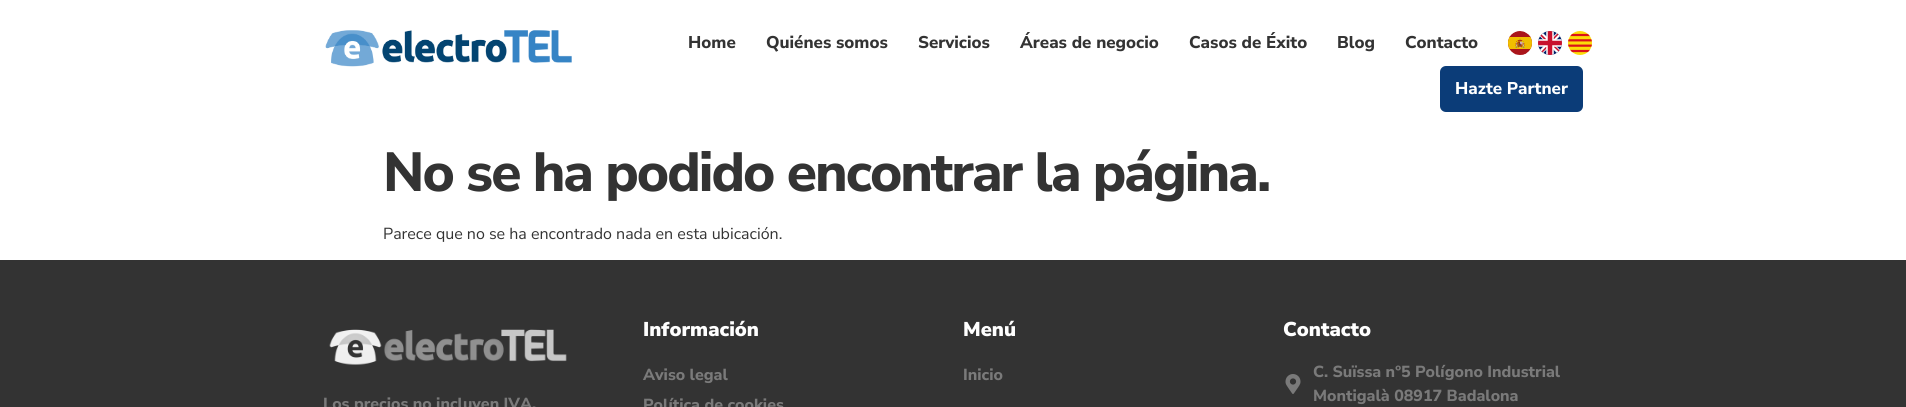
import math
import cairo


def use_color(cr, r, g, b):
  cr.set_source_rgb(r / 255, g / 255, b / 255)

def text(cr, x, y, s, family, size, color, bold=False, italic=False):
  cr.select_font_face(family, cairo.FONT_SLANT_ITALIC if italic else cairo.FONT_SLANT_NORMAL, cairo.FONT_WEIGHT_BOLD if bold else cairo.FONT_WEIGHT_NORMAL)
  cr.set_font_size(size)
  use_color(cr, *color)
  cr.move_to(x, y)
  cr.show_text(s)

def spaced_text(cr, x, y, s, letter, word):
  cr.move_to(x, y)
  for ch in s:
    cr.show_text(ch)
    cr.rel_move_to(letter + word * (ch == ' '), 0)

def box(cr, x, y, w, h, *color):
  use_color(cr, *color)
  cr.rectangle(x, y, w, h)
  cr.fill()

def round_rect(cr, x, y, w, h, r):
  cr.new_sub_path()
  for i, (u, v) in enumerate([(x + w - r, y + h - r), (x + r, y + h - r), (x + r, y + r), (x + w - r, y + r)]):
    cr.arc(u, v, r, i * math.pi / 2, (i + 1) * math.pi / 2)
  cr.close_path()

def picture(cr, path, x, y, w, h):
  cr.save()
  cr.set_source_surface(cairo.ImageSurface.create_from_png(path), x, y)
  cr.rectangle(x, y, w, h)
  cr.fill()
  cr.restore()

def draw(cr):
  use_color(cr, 255, 255, 255)
  cr.paint()
  picture(cr, "img_01.png", 325, 30, 247, 37)
  picture(cr, "img_02.png", 1508, 31, 24, 24)
  picture(cr, "img_03.png", 1538, 31, 24, 24)
  picture(cr, "img_04.png", 1568, 31, 24, 24)
  use_color(cr, 11, 60, 120)
  round_rect(cr, 1440, 66, 143, 46, 6)
  cr.fill()
  box(cr, 0, 260, 1906, 147, 51, 51, 51)
  picture(cr, "img_05.png", 329, 329, 238, 36)
  picture(cr, "img_06.png", 1285, 374, 16, 20)
  text(cr, 688, 48, "Home", "Nunito Sans ExtraBold", 17, (51, 51, 51))
  text(cr, 766, 48, "Quiénes somos", "Nunito Sans ExtraBold", 17, (51, 51, 51))
  text(cr, 918, 48, "Servicios", "Nunito Sans ExtraBold", 17, (51, 51, 51))
  text(cr, 1020, 48, "Áreas de negocio", "Nunito Sans ExtraBold", 17, (51, 51, 51))
  text(cr, 1189, 48, "Casos de Éxito", "Nunito Sans ExtraBold", 17, (51, 51, 51))
  text(cr, 1337, 48, "Blog", "Nunito Sans ExtraBold", 17, (51, 51, 51))
  text(cr, 1405, 48, "Contacto", "Nunito Sans ExtraBold", 17, (51, 51, 51))
  text(cr, 1455, 94, "Hazte Partner", "Nunito Sans ExtraBold", 17, (255, 255, 255))
  cr.set_font_size(55)
  use_color(cr, 51, 51, 51)
  spaced_text(cr, 383, 191, "No se ha podido encontrar la página.", -2, 0)
  text(cr, 383, 239, "Parece que no se ha encontrado nada en esta ubicación.", "Nunito Sans", 16, (51, 51, 51))
  text(cr, 323, 409, "Los precios no incluyen IVA.", "Nunito Sans ExtraBold", 16, (122, 122, 122))
  text(cr, 643, 336, "Información", "Nunito Sans Black", 20, (255, 255, 255))
  text(cr, 643, 380, "Aviso legal", "Nunito Sans ExtraBold", 16, (122, 122, 122))
  text(cr, 643, 410, "Política de cookies", "Nunito Sans ExtraBold", 16, (122, 122, 122))
  text(cr, 963, 336, "Menú", "Nunito Sans Black", 20, (255, 255, 255))
  text(cr, 963, 380, "Inicio", "Nunito Sans ExtraBold", 16, (122, 122, 122))
  text(cr, 1283, 336, "Contacto", "Nunito Sans Black", 20, (255, 255, 255))
  text(cr, 1313, 377, "C. Suïssa nº5 Polígono Industrial", "Nunito Sans ExtraBold", 16, (122, 122, 122))
  text(cr, 1313, 401, "Montigalà 08917 Badalona", "Nunito Sans ExtraBold", 16, (122, 122, 122))


surface = cairo.ImageSurface(cairo.FORMAT_RGB24, 1906, 407)
cr = cairo.Context(surface)
options = cairo.FontOptions()
options.set_hint_metrics(cairo.HINT_METRICS_OFF)
options.set_hint_style(cairo.HINT_STYLE_NONE)
cr.set_font_options(options)
cr.set_miter_limit(4)
draw(cr)
surface.write_to_png("out.png")
